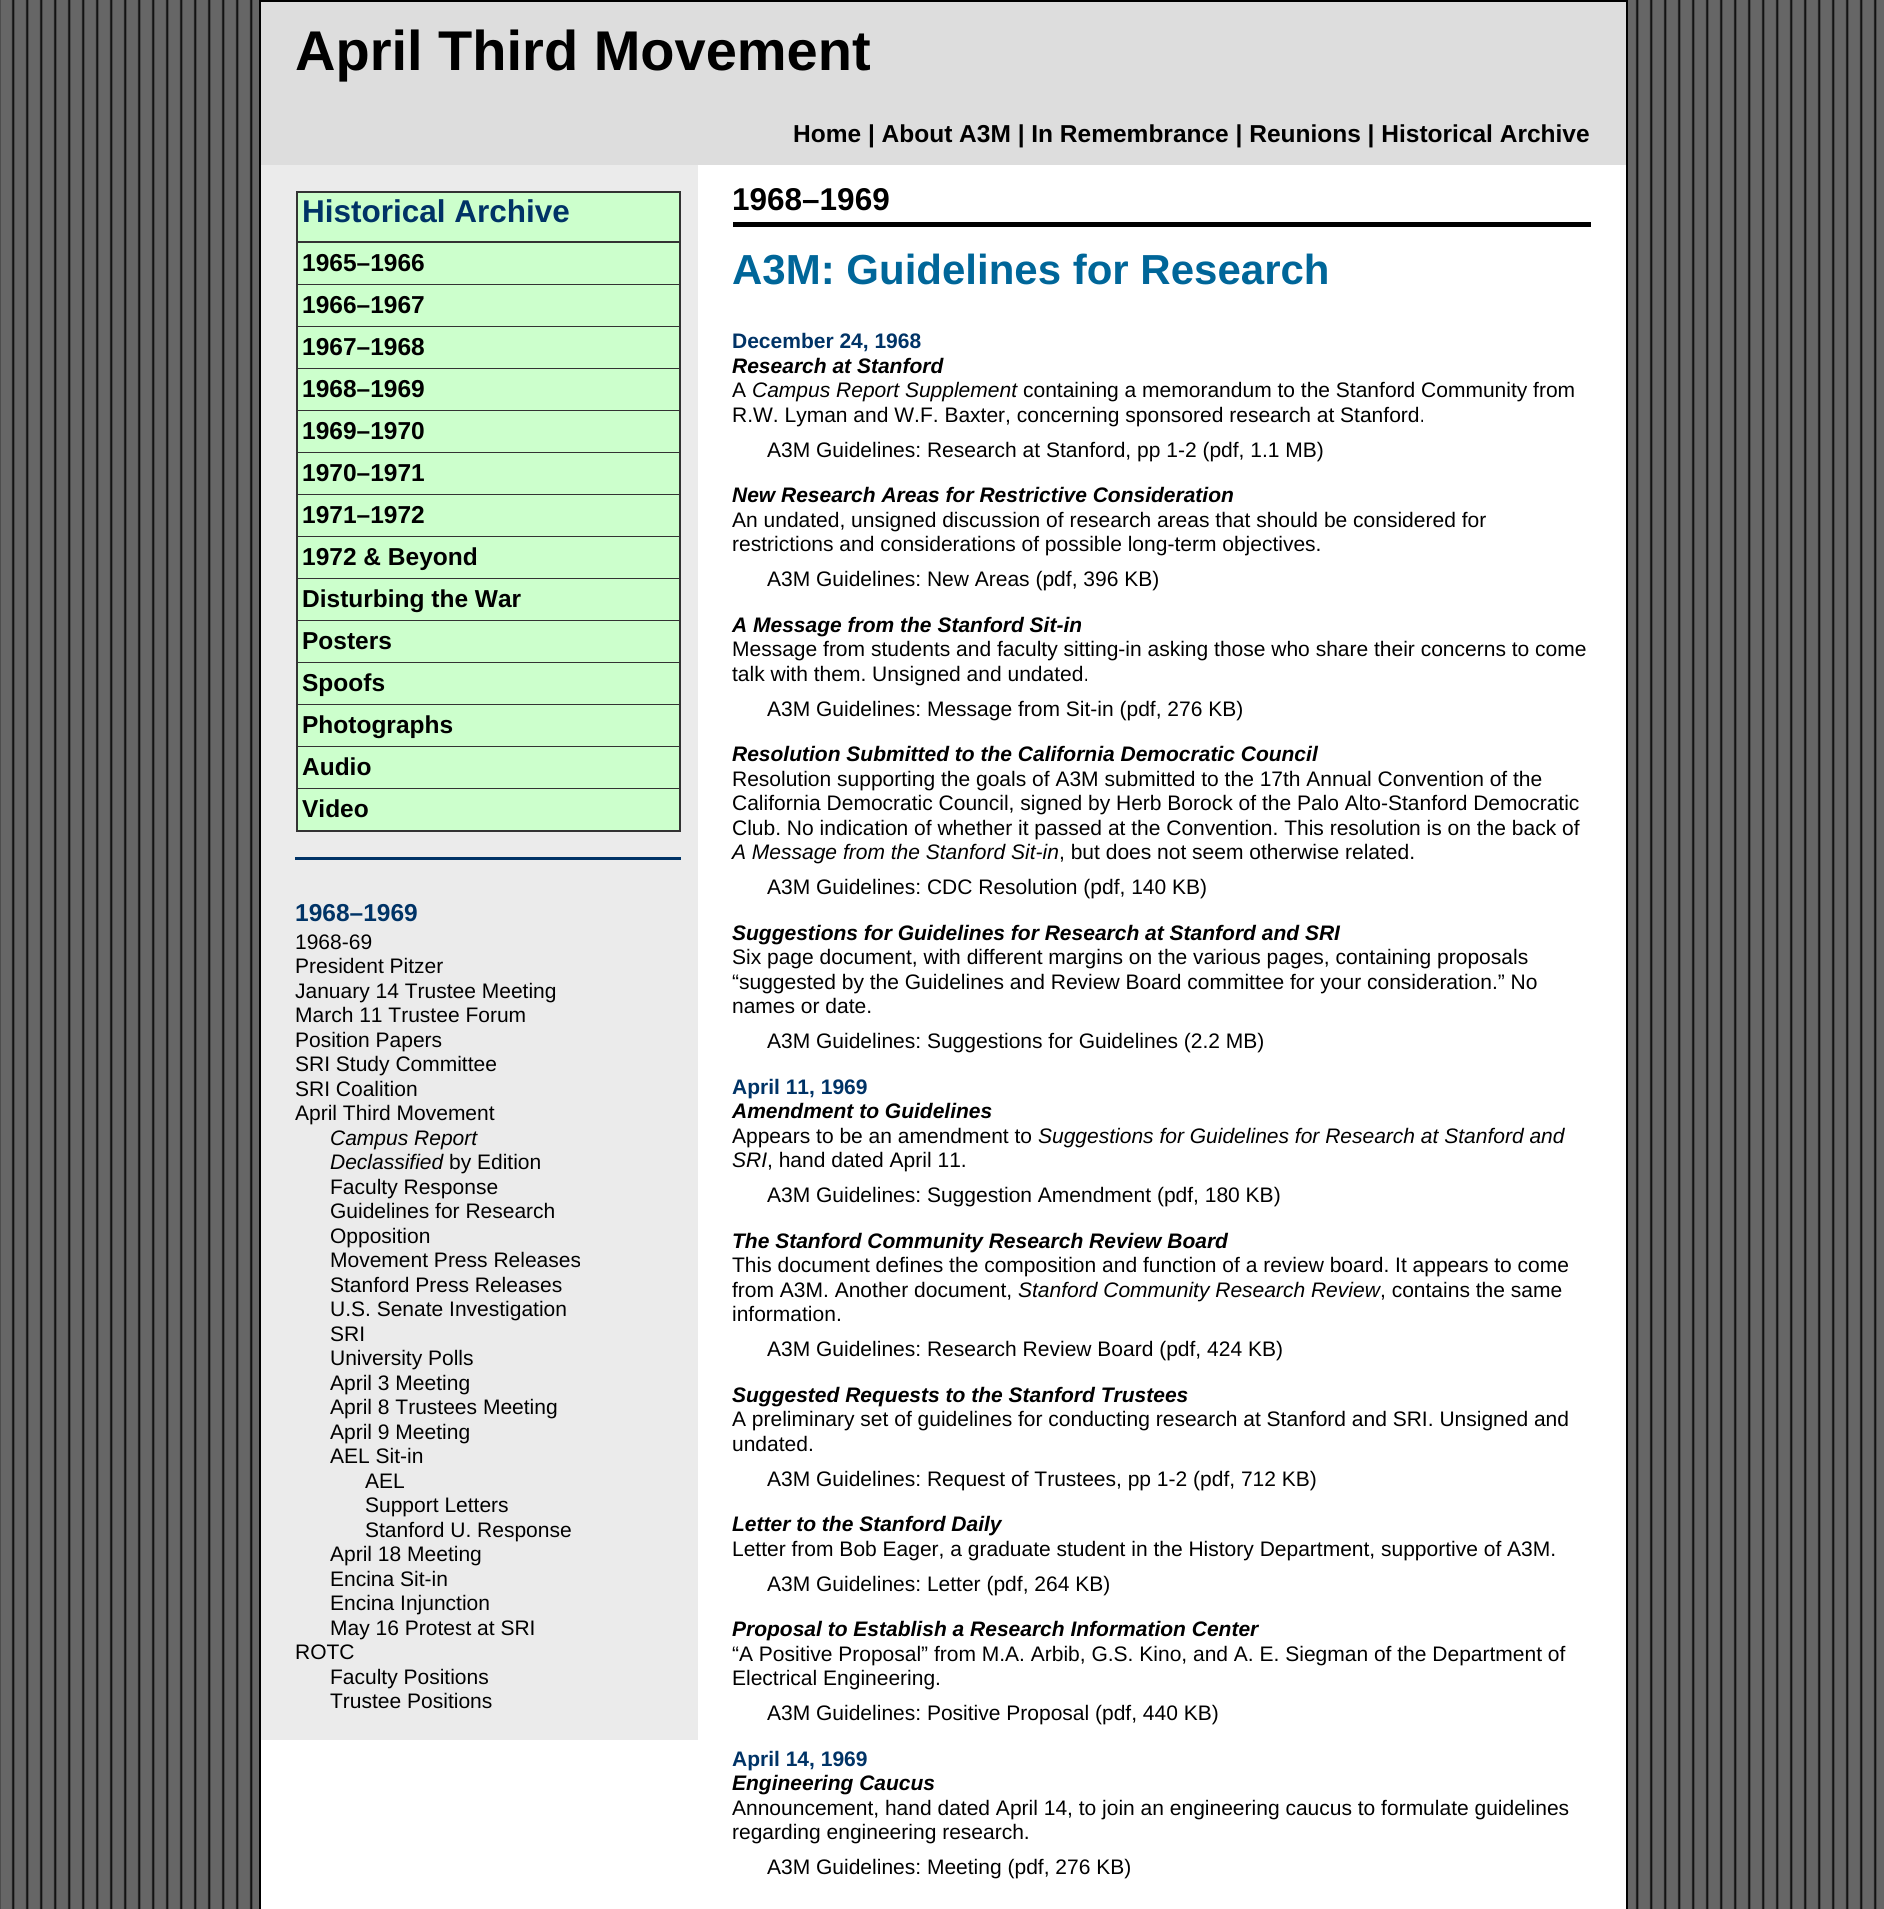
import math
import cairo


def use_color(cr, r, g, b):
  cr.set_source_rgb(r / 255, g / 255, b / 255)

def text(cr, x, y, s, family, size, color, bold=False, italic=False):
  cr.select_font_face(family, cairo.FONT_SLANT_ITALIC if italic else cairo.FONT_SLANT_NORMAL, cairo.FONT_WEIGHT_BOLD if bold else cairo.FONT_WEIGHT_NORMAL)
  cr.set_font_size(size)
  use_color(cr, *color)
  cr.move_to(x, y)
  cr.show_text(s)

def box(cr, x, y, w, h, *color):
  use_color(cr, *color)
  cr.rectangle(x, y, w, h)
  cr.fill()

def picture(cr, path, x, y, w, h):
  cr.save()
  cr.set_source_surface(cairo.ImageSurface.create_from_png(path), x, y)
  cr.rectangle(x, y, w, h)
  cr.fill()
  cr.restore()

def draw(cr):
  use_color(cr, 102, 102, 102)
  cr.paint()
  picture(cr, "img_01.png", 0, 0, 1877, 1909)
  box(cr, 261, 165, 1365, 1744, 255, 255, 255)
  cr.rectangle(260, 1, 1367, 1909)
  use_color(cr, 0, 0, 0)
  cr.stroke()
  box(cr, 261, 2, 1365, 163, 221, 221, 221)
  box(cr, 261, 165, 437, 1575, 235, 235, 235)
  use_color(cr, 204, 255, 204)
  cr.rectangle(297, 192, 383, 50)
  cr.fill_preserve()
  use_color(cr, 51, 51, 51)
  cr.stroke()
  box(cr, 298, 243, 381, 41, 204, 255, 204)
  box(cr, 679, 243, 2, 588, 51, 51, 51)
  box(cr, 296, 284, 385, 1, 51, 51, 51)
  box(cr, 296, 243, 2, 42, 51, 51, 51)
  box(cr, 298, 285, 381, 41, 204, 255, 204)
  box(cr, 296, 326, 385, 1, 51, 51, 51)
  box(cr, 296, 285, 2, 42, 51, 51, 51)
  box(cr, 298, 327, 381, 41, 204, 255, 204)
  box(cr, 296, 368, 385, 1, 51, 51, 51)
  box(cr, 296, 327, 2, 42, 51, 51, 51)
  box(cr, 298, 369, 381, 41, 204, 255, 204)
  box(cr, 296, 410, 385, 1, 51, 51, 51)
  box(cr, 296, 369, 2, 42, 51, 51, 51)
  box(cr, 298, 411, 381, 41, 204, 255, 204)
  box(cr, 296, 452, 385, 1, 51, 51, 51)
  box(cr, 296, 411, 2, 42, 51, 51, 51)
  box(cr, 298, 453, 381, 41, 204, 255, 204)
  box(cr, 296, 494, 385, 1, 51, 51, 51)
  box(cr, 296, 453, 2, 42, 51, 51, 51)
  box(cr, 298, 495, 381, 41, 204, 255, 204)
  box(cr, 296, 536, 385, 1, 51, 51, 51)
  box(cr, 296, 495, 2, 42, 51, 51, 51)
  box(cr, 298, 537, 381, 41, 204, 255, 204)
  box(cr, 296, 578, 385, 1, 51, 51, 51)
  box(cr, 296, 537, 2, 42, 51, 51, 51)
  box(cr, 298, 579, 381, 41, 204, 255, 204)
  box(cr, 296, 620, 385, 1, 51, 51, 51)
  box(cr, 296, 579, 2, 42, 51, 51, 51)
  box(cr, 298, 621, 381, 41, 204, 255, 204)
  box(cr, 296, 662, 385, 1, 51, 51, 51)
  box(cr, 296, 621, 2, 42, 51, 51, 51)
  box(cr, 298, 663, 381, 41, 204, 255, 204)
  box(cr, 296, 704, 385, 1, 51, 51, 51)
  box(cr, 296, 663, 2, 42, 51, 51, 51)
  box(cr, 298, 705, 381, 41, 204, 255, 204)
  box(cr, 296, 746, 385, 1, 51, 51, 51)
  box(cr, 296, 705, 2, 42, 51, 51, 51)
  box(cr, 298, 747, 381, 41, 204, 255, 204)
  box(cr, 296, 788, 385, 1, 51, 51, 51)
  box(cr, 296, 747, 2, 42, 51, 51, 51)
  box(cr, 298, 789, 381, 41, 204, 255, 204)
  box(cr, 296, 830, 385, 2, 51, 51, 51)
  box(cr, 296, 789, 2, 42, 51, 51, 51)
  box(cr, 295, 857, 386, 3, 0, 51, 102)
  box(cr, 733, 222, 858, 5, 0, 0, 0)
  text(cr, 295, 70, "April Third Movement", "Liberation Sans", 56, (0, 0, 0), bold=True)
  text(cr, 793, 142, "Home | About A3M | In Remembrance | Reunions | Historical Archive", "Liberation Sans", 24.5, (0, 0, 0), bold=True)
  text(cr, 302, 222, "Historical Archive", "Liberation Sans", 31.5, (0, 51, 102), bold=True)
  text(cr, 302, 271, "1965–1966", "Liberation Sans", 24.5, (0, 0, 0), bold=True)
  text(cr, 302, 313, "1966–1967", "Liberation Sans", 24.5, (0, 0, 0), bold=True)
  text(cr, 302, 355, "1967–1968", "Liberation Sans", 24.5, (0, 0, 0), bold=True)
  text(cr, 302, 397, "1968–1969", "Liberation Sans", 24.5, (0, 0, 0), bold=True)
  text(cr, 302, 439, "1969–1970", "Liberation Sans", 24.5, (0, 0, 0), bold=True)
  text(cr, 302, 481, "1970–1971", "Liberation Sans", 24.5, (0, 0, 0), bold=True)
  text(cr, 302, 523, "1971–1972", "Liberation Sans", 24.5, (0, 0, 0), bold=True)
  text(cr, 302, 565, "1972 & Beyond", "Liberation Sans", 24.5, (0, 0, 0), bold=True)
  text(cr, 302, 607, "Disturbing the War", "Liberation Sans", 24.5, (0, 0, 0), bold=True)
  text(cr, 302, 649, "Posters", "Liberation Sans", 24.5, (0, 0, 0), bold=True)
  text(cr, 302, 691, "Spoofs", "Liberation Sans", 24.5, (0, 0, 0), bold=True)
  text(cr, 302, 733, "Photographs", "Liberation Sans", 24.5, (0, 0, 0), bold=True)
  text(cr, 302, 775, "Audio", "Liberation Sans", 24.5, (0, 0, 0), bold=True)
  text(cr, 302, 817, "Video", "Liberation Sans", 24.5, (0, 0, 0), bold=True)
  text(cr, 295, 921, "1968–1969", "Liberation Sans", 24.5, (0, 51, 102), bold=True)
  text(cr, 295, 949, "1968-69", "Liberation Sans", 21, (0, 0, 0))
  text(cr, 295, 973, "President Pitzer", "Liberation Sans", 21, (0, 0, 0))
  text(cr, 295, 998, "January 14 Trustee Meeting", "Liberation Sans", 21, (0, 0, 0))
  text(cr, 295, 1022, "March 11 Trustee Forum", "Liberation Sans", 21, (0, 0, 0))
  text(cr, 295, 1047, "Position Papers", "Liberation Sans", 21, (0, 0, 0))
  text(cr, 295, 1071, "SRI Study Committee", "Liberation Sans", 21, (0, 0, 0))
  text(cr, 295, 1096, "SRI Coalition", "Liberation Sans", 21, (0, 0, 0))
  text(cr, 295, 1120, "April Third Movement", "Liberation Sans", 21, (0, 0, 0))
  text(cr, 330, 1145, "Campus Report", "Liberation Sans", 21, (0, 0, 0), italic=True)
  text(cr, 330, 1169, "Declassified", "Liberation Sans", 21, (0, 0, 0), italic=True)
  text(cr, 449, 1169, "by Edition", "Liberation Sans", 21, (0, 0, 0))
  text(cr, 330, 1194, "Faculty Response", "Liberation Sans", 21, (0, 0, 0))
  text(cr, 330, 1218, "Guidelines for Research", "Liberation Sans", 21, (0, 0, 0))
  text(cr, 330, 1243, "Opposition", "Liberation Sans", 21, (0, 0, 0))
  text(cr, 330, 1267, "Movement Press Releases", "Liberation Sans", 21, (0, 0, 0))
  text(cr, 330, 1292, "Stanford Press Releases", "Liberation Sans", 21, (0, 0, 0))
  text(cr, 330, 1316, "U.S. Senate Investigation", "Liberation Sans", 21, (0, 0, 0))
  text(cr, 330, 1341, "SRI", "Liberation Sans", 21, (0, 0, 0))
  text(cr, 330, 1365, "University Polls", "Liberation Sans", 21, (0, 0, 0))
  text(cr, 330, 1390, "April 3 Meeting", "Liberation Sans", 21, (0, 0, 0))
  text(cr, 330, 1414, "April 8 Trustees Meeting", "Liberation Sans", 21, (0, 0, 0))
  text(cr, 330, 1439, "April 9 Meeting", "Liberation Sans", 21, (0, 0, 0))
  text(cr, 330, 1463, "AEL Sit-in", "Liberation Sans", 21, (0, 0, 0))
  text(cr, 365, 1488, "AEL", "Liberation Sans", 21, (0, 0, 0))
  text(cr, 365, 1512, "Support Letters", "Liberation Sans", 21, (0, 0, 0))
  text(cr, 365, 1537, "Stanford U. Response", "Liberation Sans", 21, (0, 0, 0))
  text(cr, 330, 1561, "April 18 Meeting", "Liberation Sans", 21, (0, 0, 0))
  text(cr, 330, 1586, "Encina Sit-in", "Liberation Sans", 21, (0, 0, 0))
  text(cr, 330, 1610, "Encina Injunction", "Liberation Sans", 21, (0, 0, 0))
  text(cr, 330, 1635, "May 16 Protest at SRI", "Liberation Sans", 21, (0, 0, 0))
  text(cr, 295, 1659, "ROTC", "Liberation Sans", 21, (0, 0, 0))
  text(cr, 330, 1684, "Faculty Positions", "Liberation Sans", 21, (0, 0, 0))
  text(cr, 330, 1708, "Trustee Positions", "Liberation Sans", 21, (0, 0, 0))
  text(cr, 732, 210, "1968–1969", "Liberation Sans", 31.5, (0, 0, 0), bold=True)
  text(cr, 732, 284, "A3M: Guidelines for Research", "Liberation Sans", 42, (0, 102, 153), bold=True)
  text(cr, 732, 348, "December 24, 1968", "Liberation Sans", 21, (0, 51, 102), bold=True)
  text(cr, 732, 373, "Research at Stanford", "Liberation Sans", 21, (0, 0, 0), bold=True, italic=True)
  text(cr, 732, 397, "A", "Liberation Sans", 21, (0, 0, 0))
  text(cr, 752, 397, "Campus Report Supplement", "Liberation Sans", 21, (0, 0, 0), italic=True)
  text(cr, 1023, 397, "containing a memorandum to the Stanford Community from", "Liberation Sans", 21, (0, 0, 0))
  text(cr, 732, 422, "R.W. Lyman and W.F. Baxter, concerning sponsored research at Stanford.", "Liberation Sans", 21, (0, 0, 0))
  text(cr, 767, 457, "A3M Guidelines: Research at Stanford, pp 1-2 (pdf, 1.1 MB)", "Liberation Sans", 21, (0, 0, 0))
  text(cr, 732, 502, "New Research Areas for Restrictive Consideration", "Liberation Sans", 21, (0, 0, 0), bold=True, italic=True)
  text(cr, 732, 527, "An undated, unsigned discussion of research areas that should be considered for", "Liberation Sans", 21, (0, 0, 0))
  text(cr, 732, 551, "restrictions and considerations of possible long-term objectives.", "Liberation Sans", 21, (0, 0, 0))
  text(cr, 767, 586, "A3M Guidelines: New Areas (pdf, 396 KB)", "Liberation Sans", 21, (0, 0, 0))
  text(cr, 732, 632, "A Message from the Stanford Sit-in", "Liberation Sans", 21, (0, 0, 0), bold=True, italic=True)
  text(cr, 732, 656, "Message from students and faculty sitting-in asking those who share their concerns to come", "Liberation Sans", 21, (0, 0, 0))
  text(cr, 732, 681, "talk with them. Unsigned and undated.", "Liberation Sans", 21, (0, 0, 0))
  text(cr, 767, 716, "A3M Guidelines: Message from Sit-in (pdf, 276 KB)", "Liberation Sans", 21, (0, 0, 0))
  text(cr, 732, 761, "Resolution Submitted to the California Democratic Council", "Liberation Sans", 21, (0, 0, 0), bold=True, italic=True)
  text(cr, 732, 786, "Resolution supporting the goals of A3M submitted to the 17th Annual Convention of the", "Liberation Sans", 21, (0, 0, 0))
  text(cr, 732, 810, "California Democratic Council, signed by Herb Borock of the Palo Alto-Stanford Democratic", "Liberation Sans", 21, (0, 0, 0))
  text(cr, 732, 835, "Club. No indication of whether it passed at the Convention. This resolution is on the back of", "Liberation Sans", 21, (0, 0, 0))
  text(cr, 732, 859, "A Message from the Stanford Sit-in", "Liberation Sans", 21, (0, 0, 0), italic=True)
  text(cr, 1059, 859, ", but does not seem otherwise related.", "Liberation Sans", 21, (0, 0, 0))
  text(cr, 767, 894, "A3M Guidelines: CDC Resolution (pdf, 140 KB)", "Liberation Sans", 21, (0, 0, 0))
  text(cr, 732, 940, "Suggestions for Guidelines for Research at Stanford and SRI", "Liberation Sans", 21, (0, 0, 0), bold=True, italic=True)
  text(cr, 732, 964, "Six page document, with different margins on the various pages, containing proposals", "Liberation Sans", 21, (0, 0, 0))
  text(cr, 732, 989, "“suggested by the Guidelines and Review Board committee for your consideration.” No", "Liberation Sans", 21, (0, 0, 0))
  text(cr, 732, 1013, "names or date.", "Liberation Sans", 21, (0, 0, 0))
  text(cr, 767, 1048, "A3M Guidelines: Suggestions for Guidelines (2.2 MB)", "Liberation Sans", 21, (0, 0, 0))
  text(cr, 732, 1094, "April 11, 1969", "Liberation Sans", 21, (0, 51, 102), bold=True)
  text(cr, 732, 1118, "Amendment to Guidelines", "Liberation Sans", 21, (0, 0, 0), bold=True, italic=True)
  text(cr, 732, 1143, "Appears to be an amendment to", "Liberation Sans", 21, (0, 0, 0))
  text(cr, 1038, 1143, "Suggestions for Guidelines for Research at Stanford and", "Liberation Sans", 21, (0, 0, 0), italic=True)
  text(cr, 732, 1167, "SRI", "Liberation Sans", 21, (0, 0, 0), italic=True)
  text(cr, 767, 1167, ", hand dated April 11.", "Liberation Sans", 21, (0, 0, 0))
  text(cr, 767, 1202, "A3M Guidelines: Suggestion Amendment (pdf, 180 KB)", "Liberation Sans", 21, (0, 0, 0))
  text(cr, 732, 1248, "The Stanford Community Research Review Board", "Liberation Sans", 21, (0, 0, 0), bold=True, italic=True)
  text(cr, 732, 1272, "This document defines the composition and function of a review board. It appears to come", "Liberation Sans", 21, (0, 0, 0))
  text(cr, 732, 1297, "from A3M. Another document,", "Liberation Sans", 21, (0, 0, 0))
  text(cr, 1018, 1297, "Stanford Community Research Review", "Liberation Sans", 21, (0, 0, 0), italic=True)
  text(cr, 1380, 1297, ", contains the same", "Liberation Sans", 21, (0, 0, 0))
  text(cr, 732, 1321, "information.", "Liberation Sans", 21, (0, 0, 0))
  text(cr, 767, 1356, "A3M Guidelines: Research Review Board (pdf, 424 KB)", "Liberation Sans", 21, (0, 0, 0))
  text(cr, 732, 1402, "Suggested Requests to the Stanford Trustees", "Liberation Sans", 21, (0, 0, 0), bold=True, italic=True)
  text(cr, 732, 1426, "A preliminary set of guidelines for conducting research at Stanford and SRI. Unsigned and", "Liberation Sans", 21, (0, 0, 0))
  text(cr, 732, 1451, "undated.", "Liberation Sans", 21, (0, 0, 0))
  text(cr, 767, 1486, "A3M Guidelines: Request of Trustees, pp 1-2 (pdf, 712 KB)", "Liberation Sans", 21, (0, 0, 0))
  text(cr, 732, 1531, "Letter to the Stanford Daily", "Liberation Sans", 21, (0, 0, 0), bold=True, italic=True)
  text(cr, 732, 1556, "Letter from Bob Eager, a graduate student in the History Department, supportive of A3M.", "Liberation Sans", 21, (0, 0, 0))
  text(cr, 767, 1591, "A3M Guidelines: Letter (pdf, 264 KB)", "Liberation Sans", 21, (0, 0, 0))
  text(cr, 732, 1636, "Proposal to Establish a Research Information Center", "Liberation Sans", 21, (0, 0, 0), bold=True, italic=True)
  text(cr, 732, 1661, "“A Positive Proposal” from M.A. Arbib, G.S. Kino, and A. E. Siegman of the Department of", "Liberation Sans", 21, (0, 0, 0))
  text(cr, 732, 1685, "Electrical Engineering.", "Liberation Sans", 21, (0, 0, 0))
  text(cr, 767, 1720, "A3M Guidelines: Positive Proposal (pdf, 440 KB)", "Liberation Sans", 21, (0, 0, 0))
  text(cr, 732, 1766, "April 14, 1969", "Liberation Sans", 21, (0, 51, 102), bold=True)
  text(cr, 732, 1790, "Engineering Caucus", "Liberation Sans", 21, (0, 0, 0), bold=True, italic=True)
  text(cr, 732, 1815, "Announcement, hand dated April 14, to join an engineering caucus to formulate guidelines", "Liberation Sans", 21, (0, 0, 0))
  text(cr, 732, 1839, "regarding engineering research.", "Liberation Sans", 21, (0, 0, 0))
  text(cr, 767, 1874, "A3M Guidelines: Meeting (pdf, 276 KB)", "Liberation Sans", 21, (0, 0, 0))


surface = cairo.ImageSurface(cairo.FORMAT_RGB24, 1884, 1909)
cr = cairo.Context(surface)
options = cairo.FontOptions()
options.set_hint_metrics(cairo.HINT_METRICS_OFF)
options.set_hint_style(cairo.HINT_STYLE_NONE)
cr.set_font_options(options)
cr.set_miter_limit(4)
draw(cr)
surface.write_to_png("out.png")
